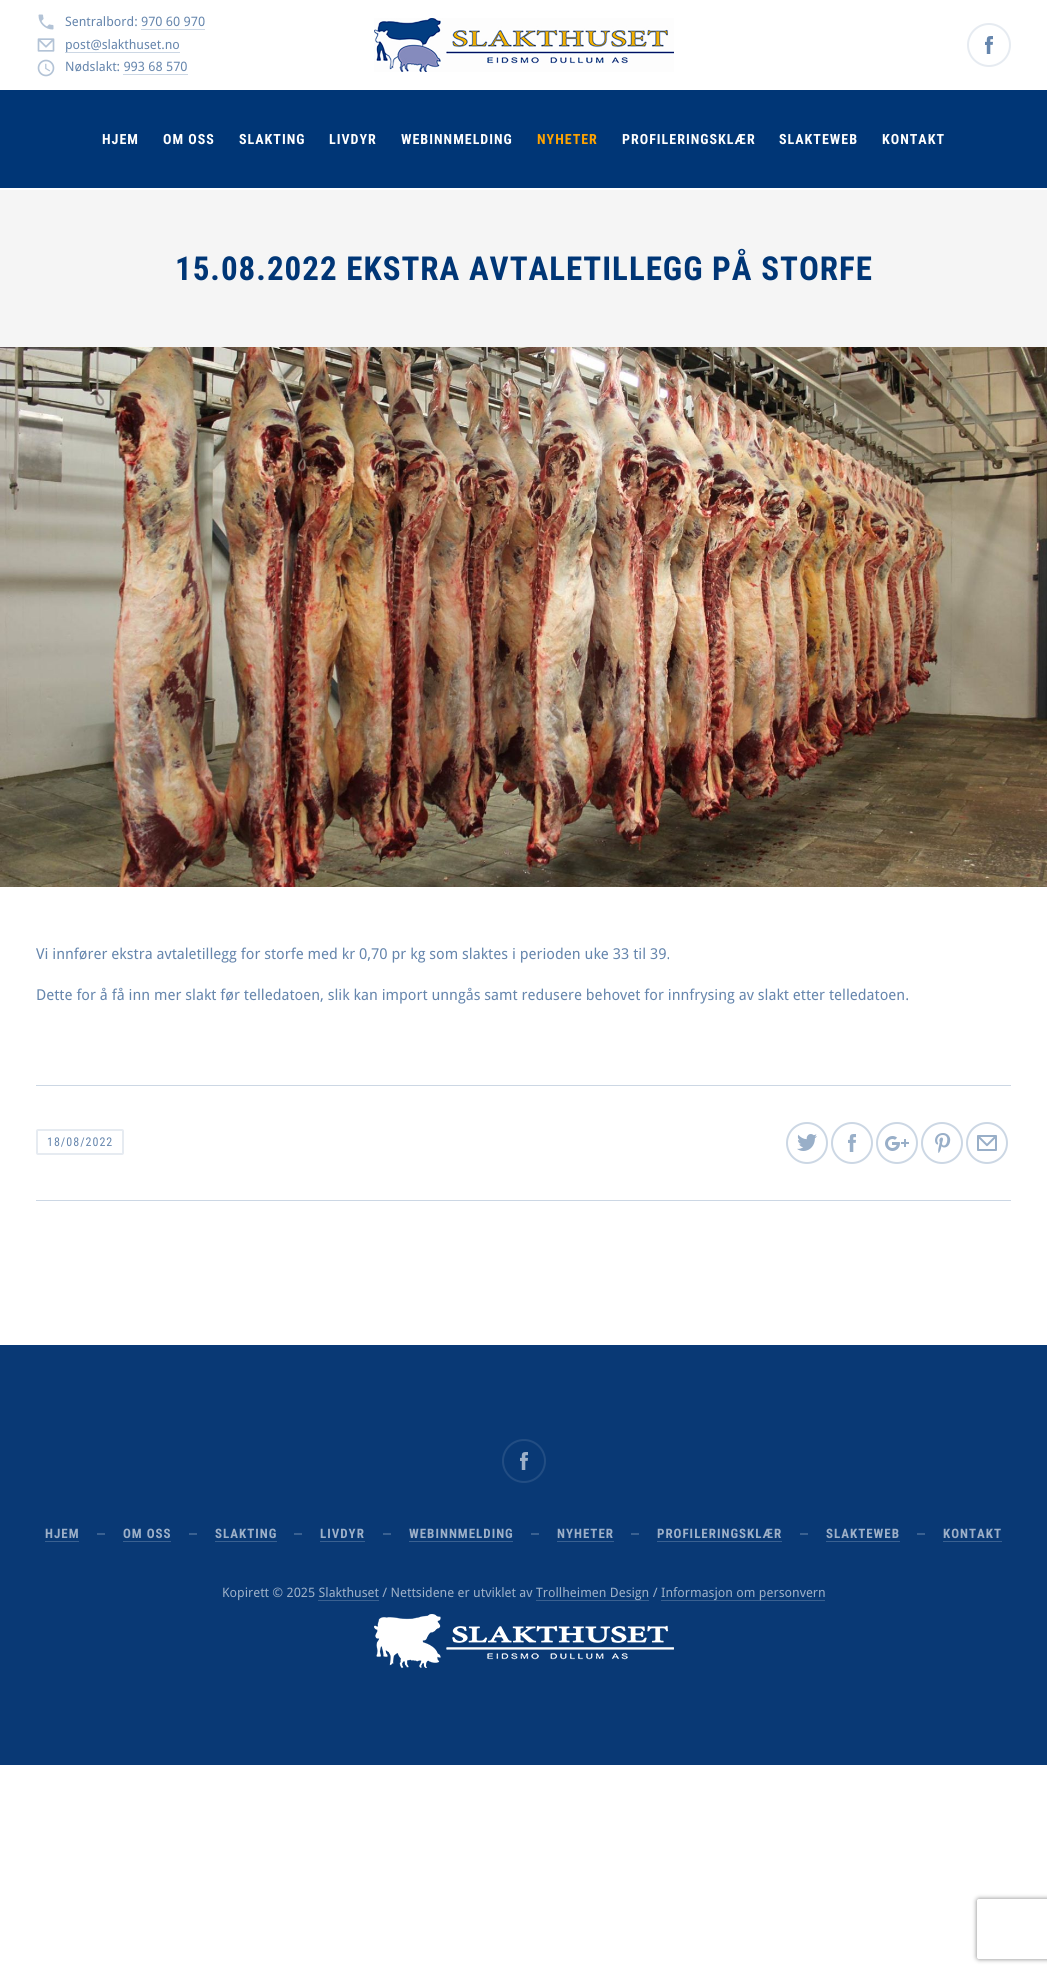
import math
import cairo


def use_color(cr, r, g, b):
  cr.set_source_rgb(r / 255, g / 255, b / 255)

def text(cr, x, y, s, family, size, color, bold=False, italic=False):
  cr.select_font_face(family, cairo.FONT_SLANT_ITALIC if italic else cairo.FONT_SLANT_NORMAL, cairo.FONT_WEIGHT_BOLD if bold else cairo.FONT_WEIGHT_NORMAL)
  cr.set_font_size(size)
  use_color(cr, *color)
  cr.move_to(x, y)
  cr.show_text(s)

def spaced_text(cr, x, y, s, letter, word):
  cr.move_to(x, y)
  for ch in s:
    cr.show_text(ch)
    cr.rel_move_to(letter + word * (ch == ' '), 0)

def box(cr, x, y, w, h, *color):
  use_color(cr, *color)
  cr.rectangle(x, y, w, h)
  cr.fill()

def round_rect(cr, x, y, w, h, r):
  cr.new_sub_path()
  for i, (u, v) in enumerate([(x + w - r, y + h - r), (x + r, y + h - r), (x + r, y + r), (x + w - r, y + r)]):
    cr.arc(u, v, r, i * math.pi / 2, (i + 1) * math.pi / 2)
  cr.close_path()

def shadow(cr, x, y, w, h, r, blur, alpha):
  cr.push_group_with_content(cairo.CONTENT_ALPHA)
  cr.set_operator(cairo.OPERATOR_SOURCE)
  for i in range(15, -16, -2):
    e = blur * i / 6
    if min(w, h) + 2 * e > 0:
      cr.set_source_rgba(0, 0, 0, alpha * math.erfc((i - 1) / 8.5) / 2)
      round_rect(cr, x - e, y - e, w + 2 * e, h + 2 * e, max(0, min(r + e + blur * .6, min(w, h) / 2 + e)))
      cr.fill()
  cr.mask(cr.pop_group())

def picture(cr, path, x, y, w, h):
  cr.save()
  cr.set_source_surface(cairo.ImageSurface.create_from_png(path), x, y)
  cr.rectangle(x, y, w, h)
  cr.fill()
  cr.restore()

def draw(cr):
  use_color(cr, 255, 255, 255)
  cr.paint()
  picture(cr, "img_01.png", 38, 14, 16, 16)
  box(cr, 141, 29, 64, 1, 204, 215, 228)
  picture(cr, "img_02.png", 37, 38, 18, 14)
  box(cr, 65, 52, 115, 1, 204, 215, 228)
  picture(cr, "img_03.png", 37, 59, 18, 18)
  box(cr, 123, 74, 65, 1, 204, 215, 228)
  picture(cr, "img_04.png", 374, 18, 300, 54)
  cr.arc(989, 45, 21, 0, 2 * math.pi)
  use_color(cr, 230, 235, 241)
  cr.stroke()
  picture(cr, "img_05.png", 985, 36, 8, 18)
  box(cr, 0, 90, 1047, 98, 0, 54, 118)
  box(cr, 0, 190, 1047, 157, 245, 245, 245)
  picture(cr, "img_06.png", 0, 347, 1047, 540)
  box(cr, 36, 1085, 975, 1, 204, 215, 228)
  round_rect(cr, 37, 1130, 86, 24, 1)
  use_color(cr, 230, 235, 241)
  cr.stroke()
  picture(cr, "img_07.png", 797, 1134, 20, 17)
  cr.arc(807, 1143, 20, 0, 2 * math.pi)
  use_color(cr, 204, 215, 228)
  cr.stroke()
  picture(cr, "img_08.png", 848, 1134, 8, 18)
  cr.arc(852, 1143, 20, 0, 2 * math.pi)
  cr.stroke()
  picture(cr, "img_09.png", 885, 1136, 24, 15)
  cr.arc(897, 1143, 20, 0, 2 * math.pi)
  cr.stroke()
  picture(cr, "img_10.png", 935, 1133, 16, 20)
  cr.arc(942, 1143, 20, 0, 2 * math.pi)
  cr.stroke()
  picture(cr, "img_11.png", 977, 1135, 20, 16)
  cr.arc(987, 1143, 20, 0, 2 * math.pi)
  cr.stroke()
  box(cr, 36, 1200, 975, 1, 204, 215, 228)
  box(cr, 0, 1345, 1047, 420, 9, 57, 117)
  cr.arc(524, 1461, 21, 0, 2 * math.pi)
  use_color(cr, 34, 77, 131)
  cr.stroke()
  picture(cr, "img_12.png", 520, 1452, 8, 18)
  box(cr, 45, 1541, 34, 1, 58, 97, 145)
  box(cr, 97, 1533, 8, 2, 58, 97, 145)
  box(cr, 123, 1541, 48, 1, 58, 97, 145)
  box(cr, 189, 1533, 8, 2, 58, 97, 145)
  box(cr, 215, 1541, 62, 1, 58, 97, 145)
  box(cr, 294, 1533, 8, 2, 58, 97, 145)
  box(cr, 320, 1541, 45, 1, 58, 97, 145)
  box(cr, 383, 1533, 8, 2, 58, 97, 145)
  box(cr, 409, 1541, 104, 1, 58, 97, 145)
  box(cr, 531, 1533, 8, 2, 58, 97, 145)
  box(cr, 557, 1541, 57, 1, 58, 97, 145)
  box(cr, 631, 1533, 8, 2, 58, 97, 145)
  box(cr, 657, 1541, 125, 1, 58, 97, 145)
  box(cr, 800, 1533, 8, 2, 58, 97, 145)
  box(cr, 826, 1541, 74, 1, 58, 97, 145)
  box(cr, 917, 1533, 8, 2, 58, 97, 145)
  box(cr, 943, 1541, 59, 1, 58, 97, 145)
  box(cr, 536, 1600, 113, 1, 58, 97, 145)
  box(cr, 661, 1600, 164, 1, 58, 97, 145)
  picture(cr, "img_13.png", 374, 1614, 300, 54)
  cr.save()
  cr.set_fill_rule(cairo.FILL_RULE_EVEN_ODD)
  cr.new_path()
  cr.move_to(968, 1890)
  cr.line_to(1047, 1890)
  cr.line_to(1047, 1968)
  cr.line_to(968, 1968)
  cr.close_path()
  cr.move_to(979, 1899)
  cr.line_to(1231, 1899)
  cr.curve_to(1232, 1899, 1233, 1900, 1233, 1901)
  cr.line_to(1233, 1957)
  cr.curve_to(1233, 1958, 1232, 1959, 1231, 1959)
  cr.line_to(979, 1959)
  cr.curve_to(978, 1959, 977, 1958, 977, 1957)
  cr.line_to(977, 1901)
  cr.curve_to(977, 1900, 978, 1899, 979, 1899)
  cr.close_path()
  cr.clip()
  use_color(cr, 128, 128, 128)
  shadow(cr, 977, 1899, 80, 60, 2, 2.5, 1)
  cr.restore()
  text(cr, 65, 26, "Sentralbord: 970 60 970", "Droid Sans", 13, (102, 134, 173))
  text(cr, 65, 49, "post@slakthuset.no", "Droid Sans", 13, (102, 134, 173))
  text(cr, 65, 71, "Nødslakt: 993 68 570", "Droid Sans", 13, (102, 134, 173))
  cr.select_font_face("Roboto Condensed", cairo.FONT_SLANT_NORMAL, cairo.FONT_WEIGHT_BOLD)
  cr.set_font_size(14)
  use_color(cr, 255, 255, 255)
  spaced_text(cr, 102, 144, "HJEM", 1, 0)
  spaced_text(cr, 163, 144, "OM OSS", 1, 0)
  spaced_text(cr, 239, 144, "SLAKTING", 1, 0)
  spaced_text(cr, 329, 144, "LIVDYR", 1, 0)
  spaced_text(cr, 401, 144, "WEBINNMELDING", 1, 0)
  use_color(cr, 255, 163, 0)
  spaced_text(cr, 537, 144, "NYHETER", 1, 0)
  use_color(cr, 255, 255, 255)
  spaced_text(cr, 622, 144, "PROFILERINGSKLÆR", 1, 0)
  spaced_text(cr, 779, 144, "SLAKTEWEB", 1, 0)
  spaced_text(cr, 882, 144, "KONTAKT", 1, 0)
  cr.set_font_size(33)
  use_color(cr, 0, 54, 118)
  spaced_text(cr, 175, 280, "15.08.2022 EKSTRA AVTALETILLEGG PÅ STORFE", 1, 0)
  text(cr, 36, 959, "Vi innfører ekstra avtaletillegg for storfe med kr 0,70 pr kg som slaktes i perioden uke 33 til 39.", "Droid Sans", 15, (102, 134, 173))
  text(cr, 36, 1000, "Dette for å få inn mer slakt før telledatoen, slik kan import unngås samt redusere behovet for innfrysing av slakt etter telledatoen.", "Droid Sans", 15, (102, 134, 173))
  cr.select_font_face("Roboto Condensed")
  cr.set_font_size(12)
  spaced_text(cr, 47, 1146, "18/08/2022", 1, 0)
  cr.select_font_face("Roboto Condensed", cairo.FONT_SLANT_NORMAL, cairo.FONT_WEIGHT_BOLD)
  cr.set_font_size(13)
  use_color(cr, 157, 176, 200)
  spaced_text(cr, 45, 1538, "HJEM", 1, 0)
  spaced_text(cr, 123, 1538, "OM OSS", 1, 0)
  spaced_text(cr, 215, 1538, "SLAKTING", 1, 0)
  spaced_text(cr, 320, 1538, "LIVDYR", 1, 0)
  spaced_text(cr, 409, 1538, "WEBINNMELDING", 1, 0)
  spaced_text(cr, 557, 1538, "NYHETER", 1, 0)
  spaced_text(cr, 657, 1538, "PROFILERINGSKLÆR", 1, 0)
  spaced_text(cr, 826, 1538, "SLAKTEWEB", 1, 0)
  spaced_text(cr, 943, 1538, "KONTAKT", 1, 0)
  text(cr, 222, 1597, "Kopirett © 2025 Slakthuset / Nettsidene er utviklet av", "Droid Sans", 13, (157, 176, 200))
  text(cr, 536, 1597, "Trollheimen Design /", "Droid Sans", 13, (157, 176, 200))
  text(cr, 661, 1597, "Informasjon om personvern", "Droid Sans", 13, (157, 176, 200))
  box(cr, 318, 1600, 61, 1, 58, 97, 145)


surface = cairo.ImageSurface(cairo.FORMAT_RGB24, 1047, 1973)
cr = cairo.Context(surface)
options = cairo.FontOptions()
options.set_hint_metrics(cairo.HINT_METRICS_OFF)
options.set_hint_style(cairo.HINT_STYLE_NONE)
cr.set_font_options(options)
cr.set_miter_limit(4)
draw(cr)
surface.write_to_png("out.png")
